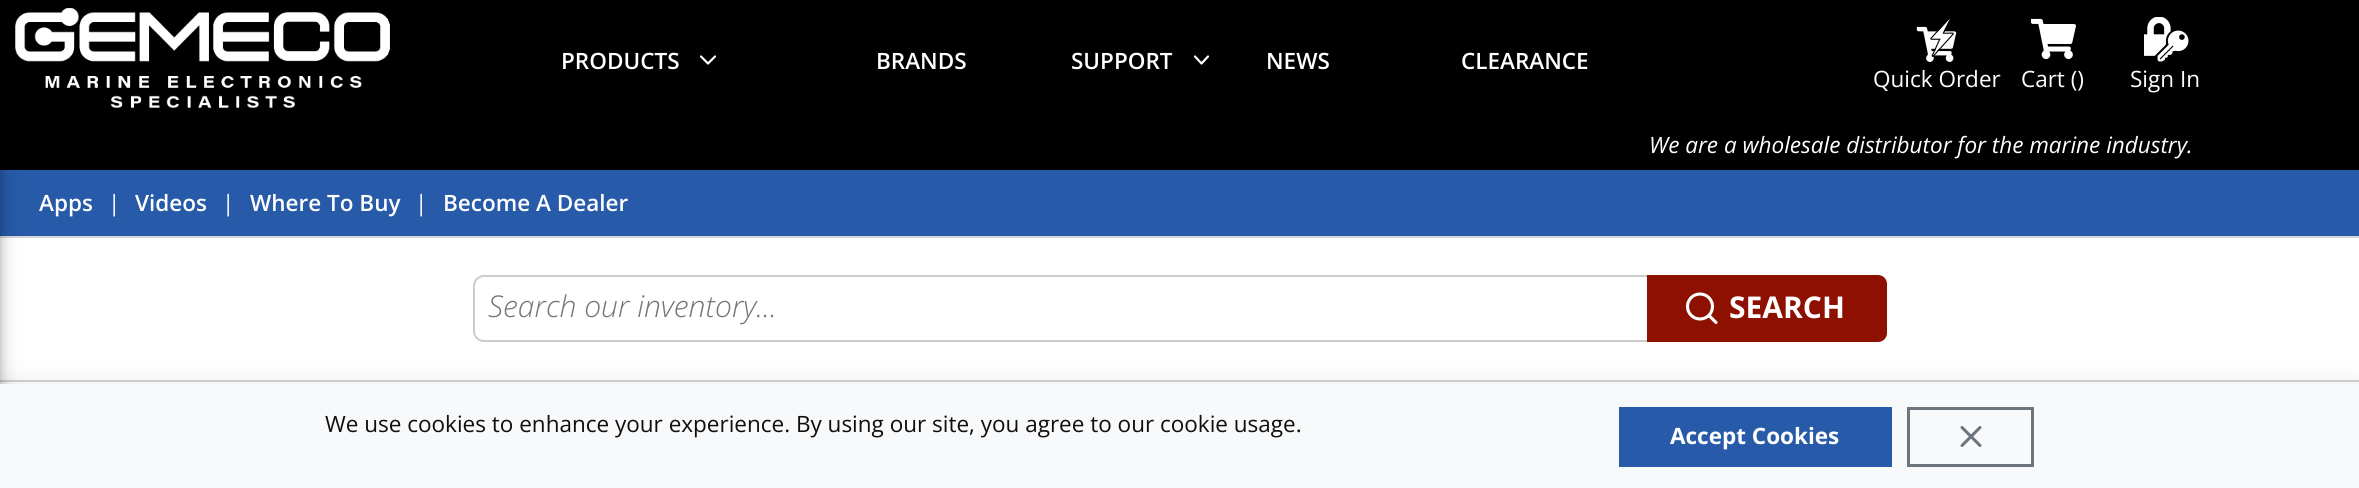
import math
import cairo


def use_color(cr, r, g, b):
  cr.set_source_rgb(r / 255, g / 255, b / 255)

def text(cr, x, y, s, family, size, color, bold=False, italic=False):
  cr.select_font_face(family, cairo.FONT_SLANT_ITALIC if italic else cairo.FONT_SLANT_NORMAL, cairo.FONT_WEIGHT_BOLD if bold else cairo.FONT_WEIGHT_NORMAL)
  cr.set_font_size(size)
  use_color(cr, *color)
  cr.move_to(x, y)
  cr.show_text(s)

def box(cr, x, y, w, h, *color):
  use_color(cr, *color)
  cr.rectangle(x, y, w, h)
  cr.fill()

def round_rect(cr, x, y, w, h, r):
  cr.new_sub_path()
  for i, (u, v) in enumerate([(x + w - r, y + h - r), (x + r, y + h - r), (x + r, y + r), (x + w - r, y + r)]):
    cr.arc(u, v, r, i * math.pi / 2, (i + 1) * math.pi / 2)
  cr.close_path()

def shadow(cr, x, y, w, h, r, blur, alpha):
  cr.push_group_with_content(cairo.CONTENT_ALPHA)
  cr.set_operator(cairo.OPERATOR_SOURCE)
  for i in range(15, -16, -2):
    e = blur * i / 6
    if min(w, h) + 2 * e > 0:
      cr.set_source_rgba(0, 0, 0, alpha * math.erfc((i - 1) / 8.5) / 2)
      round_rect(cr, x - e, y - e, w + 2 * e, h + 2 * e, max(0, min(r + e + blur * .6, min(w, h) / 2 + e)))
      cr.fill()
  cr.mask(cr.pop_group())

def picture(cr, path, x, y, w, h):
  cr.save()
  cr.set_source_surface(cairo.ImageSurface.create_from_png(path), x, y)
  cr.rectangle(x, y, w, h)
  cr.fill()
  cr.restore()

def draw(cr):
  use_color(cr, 255, 255, 255)
  cr.paint()
  box(cr, 0, 0, 2359, 170, 0, 0, 0)
  box(cr, 0, 380, 2359, 2, 214, 214, 214)
  picture(cr, "img_01.png", 15, 8, 375, 100)
  box(cr, 0, 170, 2359, 66, 39, 90, 168)
  box(cr, 0, 236, 2359, 2, 214, 214, 214)
  use_color(cr, 0, 0, 0)
  shadow(cr, -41, 2, 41, 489, 0, 13.5, 0.12)
  shadow(cr, -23, 9, 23, 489, 0, 7.5, 0.14)
  shadow(cr, -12, 6, 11, 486, 0, 4, 0.2)
  cr.new_path()
  cr.move_to(701, 56.5)
  cr.line_to(708, 63.5)
  cr.line_to(715, 56.5)
  use_color(cr, 255, 255, 255)
  cr.set_line_width(2.2)
  cr.set_line_cap(cairo.LINE_CAP_ROUND)
  cr.set_line_join(cairo.LINE_JOIN_ROUND)
  cr.stroke()
  cr.new_path()
  cr.move_to(1195, 56.5)
  cr.line_to(1201.5, 63.5)
  cr.line_to(1208, 56.5)
  cr.stroke()
  picture(cr, "img_02.png", 1916, 18, 41, 44)
  picture(cr, "img_03.png", 2031, 18, 45, 42)
  picture(cr, "img_04.png", 2144, 17, 45, 45)
  round_rect(cr, 474, 276, 1412, 65, 10)
  use_color(cr, 204, 204, 204)
  cr.set_line_width(2)
  cr.set_line_cap(cairo.LINE_CAP_BUTT)
  cr.set_line_join(cairo.LINE_JOIN_MITER)
  cr.stroke()
  use_color(cr, 141, 16, 0)
  cr.new_path()
  cr.move_to(1647, 275)
  cr.line_to(1878, 275)
  cr.curve_to(1883, 275, 1887, 279, 1887, 284)
  cr.line_to(1887, 333)
  cr.curve_to(1887, 338, 1883, 342, 1878, 342)
  cr.line_to(1647, 342)
  cr.close_path()
  cr.fill()
  cr.arc(1700, 306.5, 12.5, 0, 2 * math.pi)
  use_color(cr, 255, 255, 255)
  cr.set_line_width(3.1)
  cr.stroke()
  cr.new_path()
  cr.move_to(1716, 322.5)
  cr.line_to(1709, 315.5)
  cr.set_line_cap(cairo.LINE_CAP_ROUND)
  cr.set_line_join(cairo.LINE_JOIN_ROUND)
  cr.stroke()
  use_color(cr, 0, 0, 0)
  shadow(cr, 0, 386, 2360, 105, 0, 13.5, 0.12)
  box(cr, 0, 384, 2359, 104, 248, 249, 250)
  box(cr, 1619, 407, 273, 60, 39, 90, 168)
  cr.rectangle(1908.5, 408.5, 124, 57)
  use_color(cr, 108, 117, 125)
  cr.set_line_width(3)
  cr.set_line_cap(cairo.LINE_CAP_BUTT)
  cr.set_line_join(cairo.LINE_JOIN_MITER)
  cr.stroke()
  cr.new_path()
  cr.move_to(1980, 427.5)
  cr.line_to(1962, 445.5)
  cr.move_to(1962, 427.5)
  cr.line_to(1980, 445.5)
  cr.set_line_cap(cairo.LINE_CAP_ROUND)
  cr.set_line_join(cairo.LINE_JOIN_ROUND)
  cr.stroke()
  text(cr, 561, 69, "PRODUCTS", "Open Sans SemiBold", 22.5, (255, 255, 255))
  text(cr, 876, 69, "BRANDS", "Open Sans SemiBold", 22.5, (255, 255, 255))
  text(cr, 1071, 69, "SUPPORT", "Open Sans SemiBold", 22.5, (255, 255, 255))
  text(cr, 1266, 69, "NEWS", "Open Sans SemiBold", 22.5, (255, 255, 255))
  text(cr, 1461, 69, "CLEARANCE", "Open Sans SemiBold", 22.5, (255, 255, 255))
  text(cr, 1873, 87, "Quick Order", "Open Sans", 22.5, (255, 255, 255))
  text(cr, 2021, 87, "Cart ()", "Open Sans", 22.5, (255, 255, 255))
  text(cr, 2130, 87, "Sign In", "Open Sans", 22.5, (255, 255, 255))
  text(cr, 1649, 153, "We are a wholesale distributor for the marine industry.", "Open Sans", 22.5, (255, 255, 255), italic=True)
  text(cr, 39, 211, "Apps", "Open Sans SemiBold", 22.5, (255, 255, 255))
  text(cr, 108, 211, "|", "Open Sans", 22.5, (255, 255, 255))
  text(cr, 135, 211, "Videos", "Open Sans SemiBold", 22.5, (255, 255, 255))
  text(cr, 222, 211, "|", "Open Sans", 22.5, (255, 255, 255))
  text(cr, 250, 211, "Where To Buy", "Open Sans SemiBold", 22.5, (255, 255, 255))
  text(cr, 415, 211, "|", "Open Sans", 22.5, (255, 255, 255))
  text(cr, 443, 211, "Become A Dealer", "Open Sans SemiBold", 22.5, (255, 255, 255))
  text(cr, 488, 317, "Search our inventory...", "Open Sans Light", 30, (117, 117, 117), italic=True)
  text(cr, 1729, 318, "SEARCH", "Open Sans", 30, (255, 255, 255), bold=True)
  text(cr, 325, 432, "We use cookies to enhance your experience. By using our site, you agree to our cookie usage.", "Open Sans", 22.5, (15, 15, 15))
  text(cr, 1670, 444, "Accept Cookies", "Open Sans", 22.5, (255, 255, 255), bold=True)


surface = cairo.ImageSurface(cairo.FORMAT_RGB24, 2359, 488)
cr = cairo.Context(surface)
options = cairo.FontOptions()
options.set_hint_metrics(cairo.HINT_METRICS_OFF)
options.set_hint_style(cairo.HINT_STYLE_NONE)
cr.set_font_options(options)
cr.set_miter_limit(4)
draw(cr)
surface.write_to_png("out.png")
